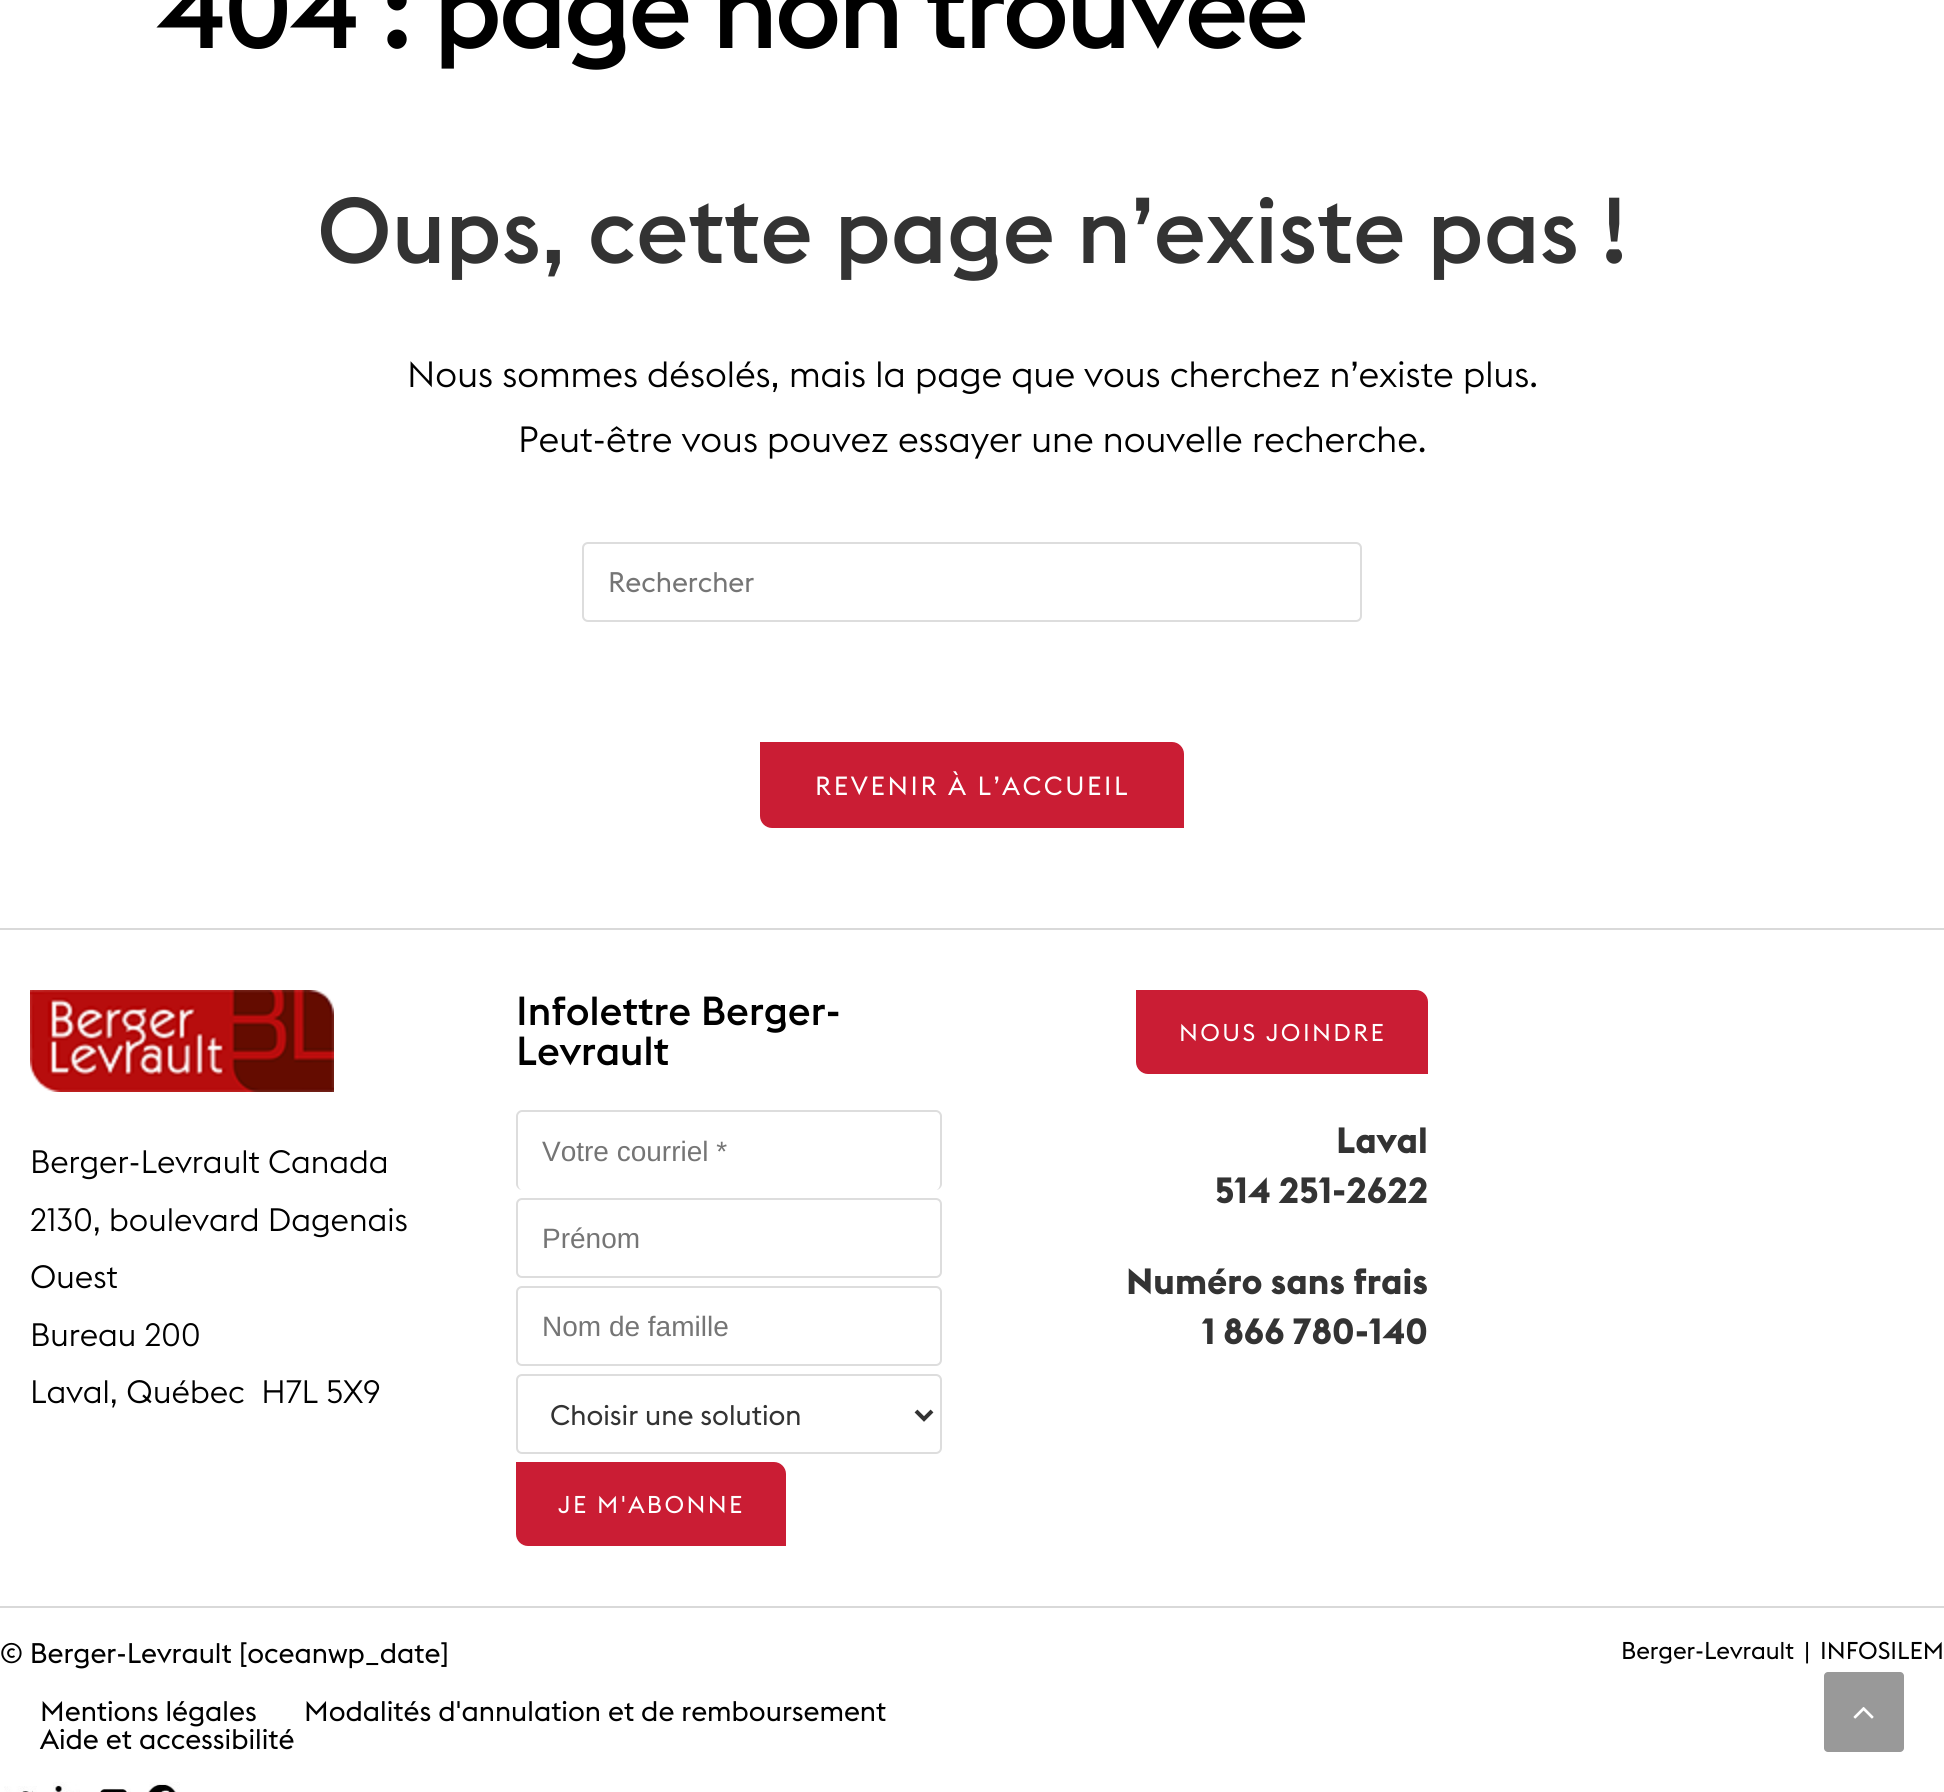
import math
import cairo


def use_color(cr, r, g, b):
  cr.set_source_rgb(r / 255, g / 255, b / 255)

def text(cr, x, y, s, family, size, color, bold=False, italic=False):
  cr.select_font_face(family, cairo.FONT_SLANT_ITALIC if italic else cairo.FONT_SLANT_NORMAL, cairo.FONT_WEIGHT_BOLD if bold else cairo.FONT_WEIGHT_NORMAL)
  cr.set_font_size(size)
  use_color(cr, *color)
  cr.move_to(x, y)
  cr.show_text(s)

def spaced_text(cr, x, y, s, letter, word):
  cr.move_to(x, y)
  for ch in s:
    cr.show_text(ch)
    cr.rel_move_to(letter + word * (ch == ' '), 0)

def box(cr, x, y, w, h, *color):
  use_color(cr, *color)
  cr.rectangle(x, y, w, h)
  cr.fill()

def round_rect(cr, x, y, w, h, r):
  cr.new_sub_path()
  for i, (u, v) in enumerate([(x + w - r, y + h - r), (x + r, y + h - r), (x + r, y + r), (x + w - r, y + r)]):
    cr.arc(u, v, r, i * math.pi / 2, (i + 1) * math.pi / 2)
  cr.close_path()

def picture(cr, path, x, y, w, h):
  cr.save()
  cr.set_source_surface(cairo.ImageSurface.create_from_png(path), x, y)
  cr.rectangle(x, y, w, h)
  cr.fill()
  cr.restore()

def draw(cr):
  use_color(cr, 255, 255, 255)
  cr.paint()
  round_rect(cr, 583, 543, 778, 78, 5)
  use_color(cr, 221, 221, 221)
  cr.stroke()
  use_color(cr, 202, 29, 52)
  cr.new_path()
  cr.move_to(761, 743)
  cr.line_to(1172, 743)
  cr.curve_to(1178, 743, 1183, 748, 1183, 754)
  cr.line_to(1183, 827)
  cr.line_to(772, 827)
  cr.curve_to(766, 827, 761, 822, 761, 816)
  cr.close_path()
  cr.fill_preserve()
  cr.stroke()
  box(cr, 0, 928, 1944, 2, 217, 217, 217)
  picture(cr, "img_01.png", 30, 990, 304, 102)
  use_color(cr, 221, 221, 221)
  cr.set_fill_rule(cairo.FILL_RULE_EVEN_ODD)
  cr.new_path()
  cr.move_to(522, 1110)
  cr.line_to(936, 1110)
  cr.curve_to(939, 1110, 942, 1113, 942, 1116)
  cr.line_to(942, 1184)
  cr.curve_to(942, 1187, 939, 1190, 936, 1190)
  cr.line_to(522, 1190)
  cr.curve_to(519, 1190, 516, 1187, 516, 1184)
  cr.line_to(516, 1116)
  cr.curve_to(516, 1113, 519, 1110, 522, 1110)
  cr.close_path()
  cr.move_to(522, 1112)
  cr.line_to(936, 1112)
  cr.curve_to(938, 1112, 940, 1114, 940, 1116)
  cr.line_to(940, 1184)
  cr.curve_to(940, 1187, 938, 1190, 936, 1190)
  cr.line_to(522, 1190)
  cr.curve_to(520, 1190, 518, 1187, 518, 1184)
  cr.line_to(518, 1116)
  cr.curve_to(518, 1114, 520, 1112, 522, 1112)
  cr.close_path()
  cr.fill()
  round_rect(cr, 517, 1199, 424, 78, 5)
  cr.stroke()
  round_rect(cr, 517, 1287, 424, 78, 5)
  cr.stroke()
  round_rect(cr, 517, 1375, 424, 78, 5)
  cr.stroke()
  cr.new_path()
  cr.move_to(916, 1411)
  cr.line_to(924, 1419)
  cr.line_to(932, 1411)
  use_color(cr, 51, 51, 51)
  cr.set_line_width(4)
  cr.stroke()
  use_color(cr, 202, 29, 52)
  cr.new_path()
  cr.move_to(517, 1463)
  cr.line_to(774, 1463)
  cr.curve_to(780, 1463, 785, 1468, 785, 1474)
  cr.line_to(785, 1545)
  cr.line_to(528, 1545)
  cr.curve_to(522, 1545, 517, 1540, 517, 1534)
  cr.close_path()
  cr.fill_preserve()
  cr.set_line_width(2)
  cr.stroke()
  cr.new_path()
  cr.move_to(1137, 991)
  cr.line_to(1416, 991)
  cr.curve_to(1422, 991, 1427, 996, 1427, 1002)
  cr.line_to(1427, 1073)
  cr.line_to(1148, 1073)
  cr.curve_to(1142, 1073, 1137, 1068, 1137, 1062)
  cr.close_path()
  cr.fill_preserve()
  cr.stroke()
  box(cr, 0, 1606, 1944, 2, 217, 217, 217)
  picture(cr, "img_02.png", 4, 1786, 33, 6)
  picture(cr, "img_03.png", 53, 1782, 27, 10)
  picture(cr, "img_04.png", 100, 1788, 31, 4)
  picture(cr, "img_05.png", 148, 1782, 32, 10)
  use_color(cr, 153, 153, 153)
  round_rect(cr, 1824, 1672, 80, 80, 4)
  cr.fill()
  picture(cr, "img_06.png", 1853, 1707, 21, 12)
  cr.select_font_face("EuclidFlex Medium")
  cr.set_font_size(112)
  use_color(cr, 0, 0, 0)
  spaced_text(cr, 156, 48, "404 : page non trouvée", -3.3, 0)
  text(cr, 317, 263, "Oups, cette page n’existe pas !", "EuclidFlex Medium", 92, (51, 51, 51))
  text(cr, 407, 387, "Nous sommes désolés, mais la page que vous cherchez n’existe plus.", "EuclidFlex Light", 36, (0, 0, 0))
  text(cr, 518, 452, "Peut-être vous pouvez essayer une nouvelle recherche.", "EuclidFlex Light", 36, (0, 0, 0))
  text(cr, 608, 592, "Rechercher", "EuclidFlex", 28, (117, 117, 117))
  cr.set_font_size(26)
  use_color(cr, 255, 255, 255)
  spaced_text(cr, 815, 795, "REVENIR À L’ACCUEIL", 2.6, 0)
  text(cr, 30, 1173, "Berger-Levrault Canada", "EuclidFlex Light", 32, (0, 0, 0))
  text(cr, 30, 1231, "2130, boulevard Dagenais", "EuclidFlex Light", 32, (0, 0, 0))
  text(cr, 30, 1288, "Ouest", "EuclidFlex Light", 32, (0, 0, 0))
  text(cr, 30, 1346, "Bureau 200", "EuclidFlex Light", 32, (0, 0, 0))
  text(cr, 30, 1403, "Laval, Québec  H7L 5X9", "EuclidFlex Light", 32, (0, 0, 0))
  text(cr, 516, 1025, "Infolettre Berger-", "EuclidFlex Medium", 40, (0, 0, 0))
  text(cr, 516, 1065, "Levrault", "EuclidFlex Medium", 40, (0, 0, 0))
  text(cr, 542, 1161, "Votre courriel *", "Liberation Sans", 28, (117, 117, 117))
  text(cr, 542, 1248, "Prénom", "Liberation Sans", 28, (117, 117, 117))
  text(cr, 542, 1336, "Nom de famille", "Liberation Sans", 28, (117, 117, 117))
  text(cr, 550, 1425, "Choisir une solution", "EuclidFlex", 28, (51, 51, 51))
  cr.set_font_size(24)
  use_color(cr, 255, 255, 255)
  spaced_text(cr, 558, 1513, "JE M'ABONNE", 2.4, 0)
  spaced_text(cr, 1179, 1041, "NOUS JOINDRE", 2.4, 0)
  text(cr, 1336, 1153, "Laval", "EuclidFlex", 36, (51, 51, 51), bold=True)
  text(cr, 1215, 1203, "514 251-2622", "EuclidFlex", 36, (51, 51, 51), bold=True)
  text(cr, 1126, 1294, "Numéro sans frais", "EuclidFlex", 36, (51, 51, 51), bold=True)
  text(cr, 1202, 1344, "1 866 780-140", "EuclidFlex", 36, (51, 51, 51), bold=True)
  text(cr, 0, 1663, "© Berger-Levrault [oceanwp_date]", "EuclidFlex", 28, (0, 0, 0))
  text(cr, 40, 1721, "Mentions légales", "EuclidFlex", 28, (0, 0, 0))
  text(cr, 304, 1721, "Modalités d'annulation et de remboursement", "EuclidFlex", 28, (0, 0, 0))
  text(cr, 40, 1749, "Aide et accessibilité", "EuclidFlex", 28, (0, 0, 0))
  text(cr, 1621, 1659, "Berger-Levrault", "EuclidFlex", 24, (0, 0, 0))
  text(cr, 1804, 1659, "|", "EuclidFlex", 24, (0, 0, 0))
  text(cr, 1820, 1659, "INFOSILEM", "EuclidFlex", 24, (0, 0, 0))


surface = cairo.ImageSurface(cairo.FORMAT_RGB24, 1944, 1792)
cr = cairo.Context(surface)
options = cairo.FontOptions()
options.set_hint_metrics(cairo.HINT_METRICS_OFF)
options.set_hint_style(cairo.HINT_STYLE_NONE)
cr.set_font_options(options)
cr.set_miter_limit(4)
draw(cr)
surface.write_to_png("out.png")
